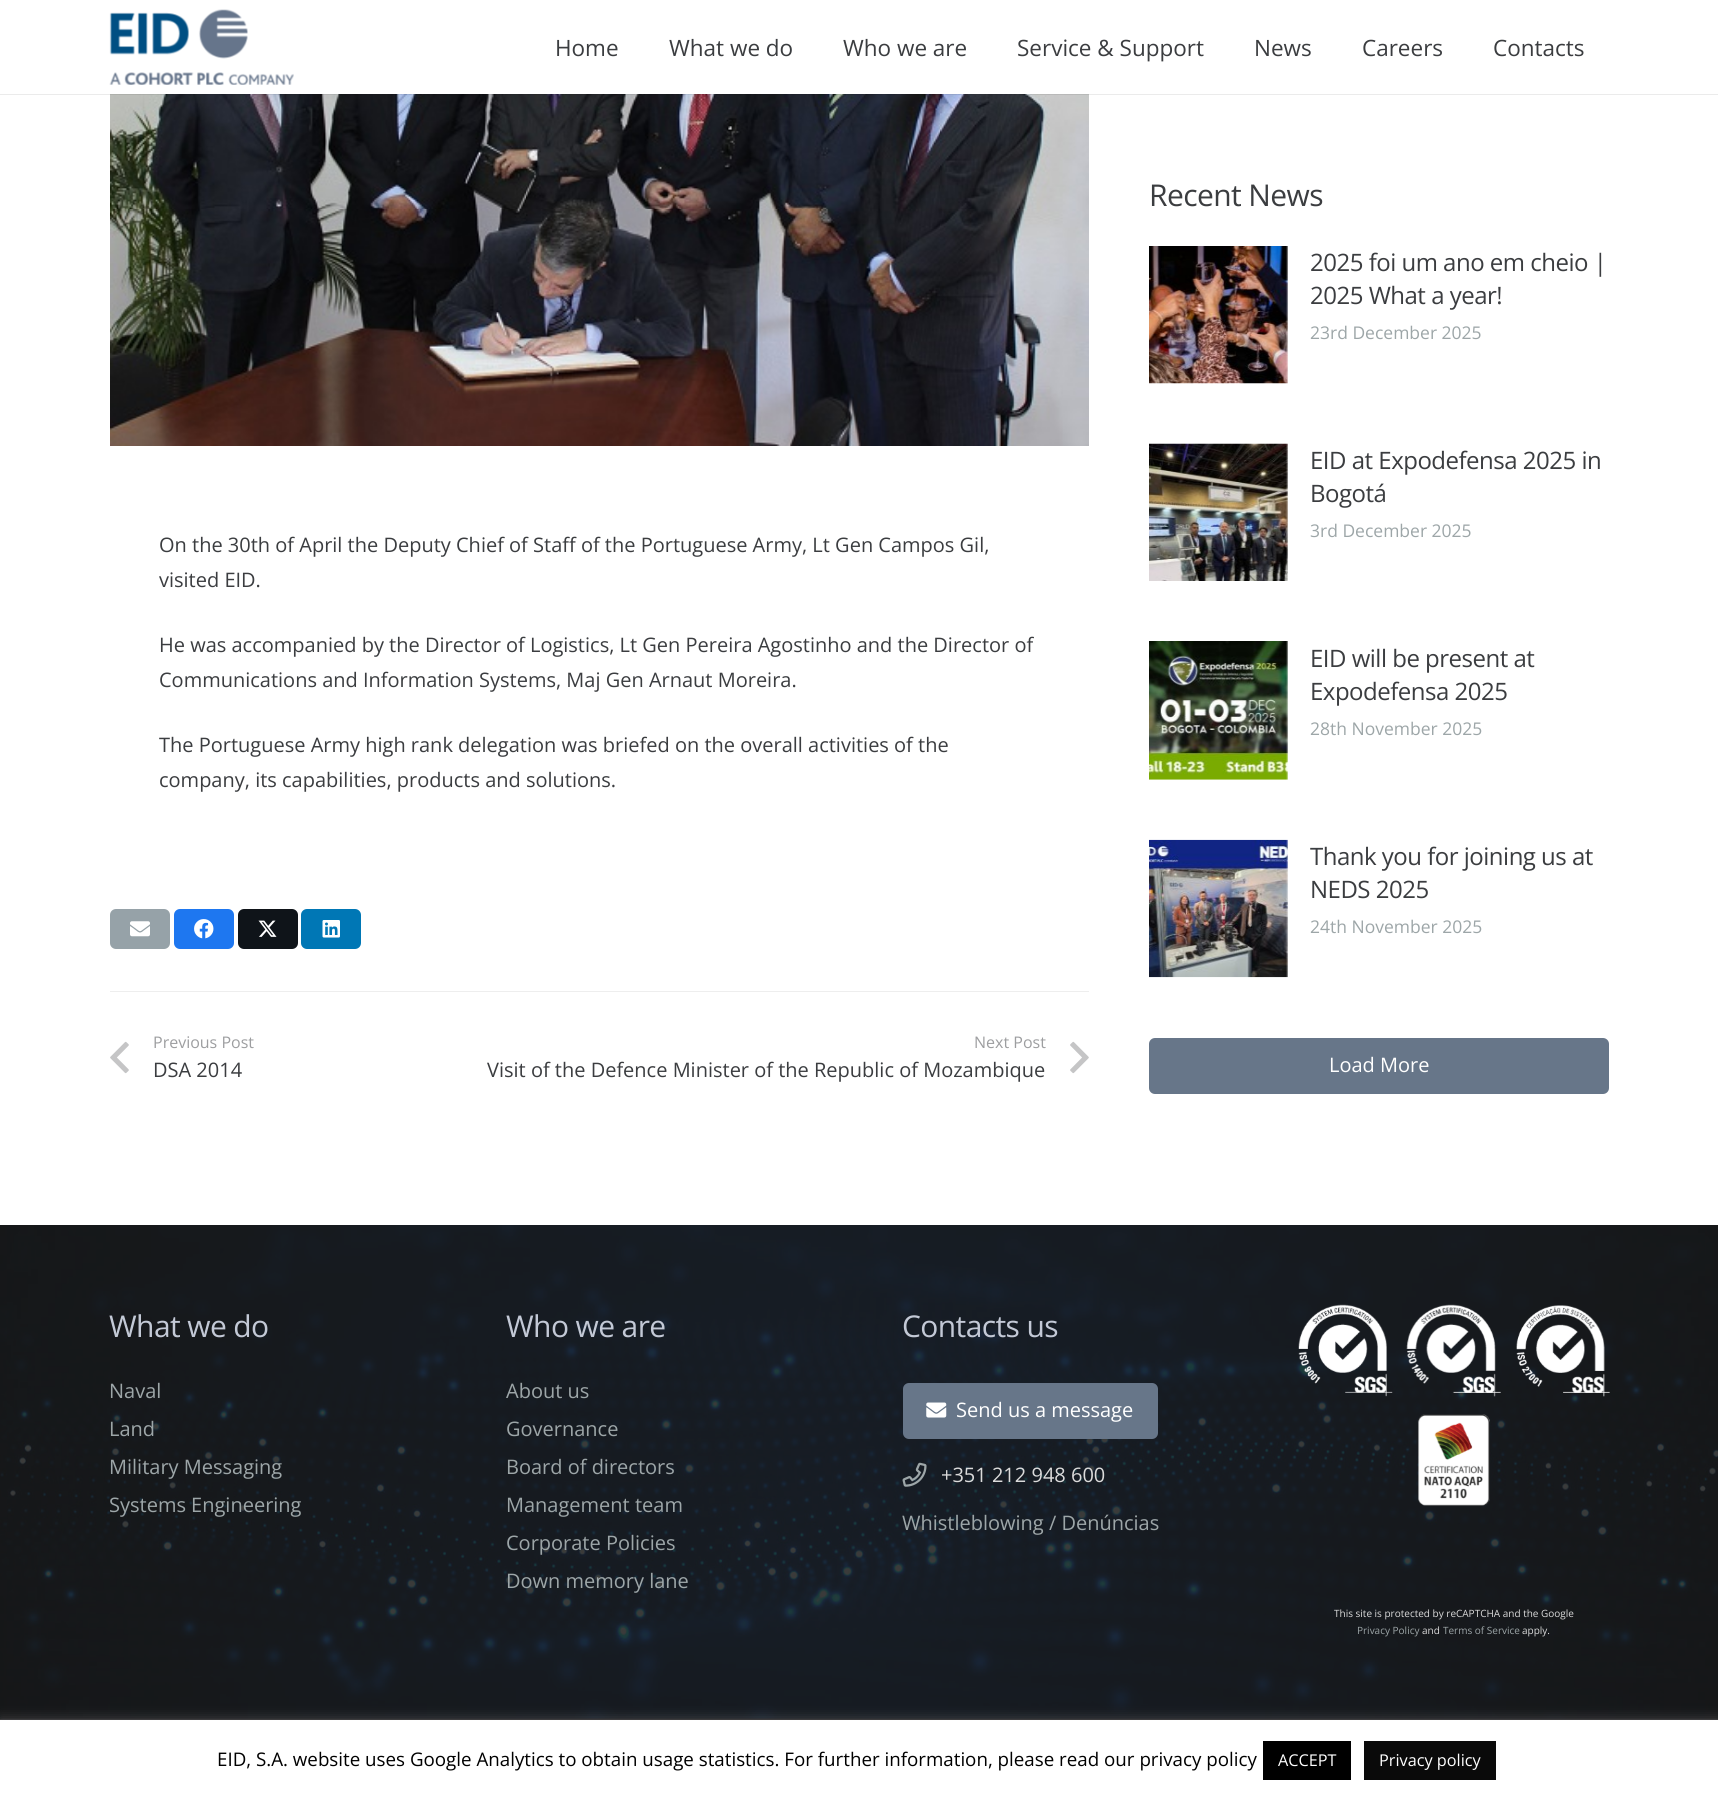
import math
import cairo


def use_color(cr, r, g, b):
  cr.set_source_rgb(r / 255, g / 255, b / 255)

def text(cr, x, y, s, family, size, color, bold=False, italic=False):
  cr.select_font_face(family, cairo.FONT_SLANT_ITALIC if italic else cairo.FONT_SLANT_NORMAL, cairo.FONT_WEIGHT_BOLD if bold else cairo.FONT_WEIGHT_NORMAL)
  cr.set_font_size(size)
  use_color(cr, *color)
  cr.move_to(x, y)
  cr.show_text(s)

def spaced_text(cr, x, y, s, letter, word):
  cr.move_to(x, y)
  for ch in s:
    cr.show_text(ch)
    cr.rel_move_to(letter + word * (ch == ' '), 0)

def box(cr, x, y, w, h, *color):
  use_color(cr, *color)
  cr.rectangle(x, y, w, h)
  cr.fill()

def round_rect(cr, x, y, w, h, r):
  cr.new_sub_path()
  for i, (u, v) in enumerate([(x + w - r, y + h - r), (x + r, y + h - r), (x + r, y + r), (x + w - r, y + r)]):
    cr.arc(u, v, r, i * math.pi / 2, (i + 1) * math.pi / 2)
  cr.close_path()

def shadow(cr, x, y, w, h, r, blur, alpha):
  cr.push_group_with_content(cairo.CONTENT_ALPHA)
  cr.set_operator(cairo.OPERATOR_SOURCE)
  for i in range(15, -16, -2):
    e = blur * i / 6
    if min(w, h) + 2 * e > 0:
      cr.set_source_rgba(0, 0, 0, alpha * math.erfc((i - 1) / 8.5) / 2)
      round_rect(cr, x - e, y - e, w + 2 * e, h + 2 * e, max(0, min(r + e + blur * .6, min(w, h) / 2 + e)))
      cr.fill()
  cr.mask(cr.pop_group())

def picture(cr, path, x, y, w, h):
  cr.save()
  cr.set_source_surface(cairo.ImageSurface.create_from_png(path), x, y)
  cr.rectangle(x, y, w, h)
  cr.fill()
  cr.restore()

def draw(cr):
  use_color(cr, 255, 255, 255)
  cr.paint()
  picture(cr, "img_02.png", 110, 94, 979, 352)
  cr.set_source_rgba(0, 0, 0, 0.08)
  cr.new_path()
  cr.move_to(0, 94)
  cr.line_to(0, 95)
  cr.line_to(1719, 95)
  cr.line_to(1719, 1)
  cr.line_to(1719, 94)
  cr.close_path()
  cr.fill()
  picture(cr, "img_01.png", 109, 9, 185, 76)
  use_color(cr, 150, 162, 168)
  round_rect(cr, 110, 909, 60, 40, 6)
  cr.fill()
  picture(cr, "img_03.png", 130, 921, 20, 16)
  use_color(cr, 30, 119, 240)
  round_rect(cr, 174, 909, 60, 40, 6)
  cr.fill()
  picture(cr, "img_04.png", 194, 919, 20, 20)
  use_color(cr, 15, 20, 25)
  round_rect(cr, 238, 909, 60, 40, 6)
  cr.fill()
  picture(cr, "img_05.png", 258, 920, 19, 17)
  use_color(cr, 0, 119, 181)
  round_rect(cr, 301, 909, 60, 40, 6)
  cr.fill()
  picture(cr, "img_06.png", 322, 920, 18, 18)
  box(cr, 110, 991, 979, 1, 238, 238, 238)
  picture(cr, "img_07.png", 110, 1041, 19, 33)
  picture(cr, "img_08.png", 1070, 1041, 19, 33)
  picture(cr, "img_09.png", 1149, 246, 139, 138)
  picture(cr, "img_10.png", 1149, 443, 139, 138)
  picture(cr, "img_11.png", 1149, 641, 139, 139)
  picture(cr, "img_12.png", 1149, 839, 139, 139)
  use_color(cr, 103, 118, 137)
  round_rect(cr, 1149, 1038, 460, 56, 6)
  cr.fill()
  box(cr, 0, 1718, 1718, 1, 27, 27, 28)
  picture(cr, "img_13.png", 0, 1225, 1718, 494)
  use_color(cr, 103, 118, 137)
  round_rect(cr, 903, 1383, 255, 56, 6)
  cr.fill()
  picture(cr, "img_14.png", 926, 1402, 21, 16)
  picture(cr, "img_15.png", 902, 1462, 25, 25)
  picture(cr, "img_16.png", 1298, 1304, 312, 202)
  box(cr, 0, 1719, 1718, 1, 39, 40, 42)
  use_color(cr, 172, 171, 171)
  shadow(cr, 0, 1719, 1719, 81, 0, 6, 0.3)
  box(cr, 0, 1720, 1718, 81, 255, 255, 255)
  box(cr, 1263, 1741, 88, 39, 0, 0, 0)
  box(cr, 1364, 1741, 132, 39, 10, 10, 10)
  text(cr, 555, 56, "Home", "Open Sans", 22.5, (59, 61, 64))
  text(cr, 669, 56, "What we do", "Open Sans", 22.5, (59, 61, 64))
  text(cr, 843, 56, "Who we are", "Open Sans", 22.5, (59, 61, 64))
  text(cr, 1017, 56, "Service & Support", "Open Sans", 22.5, (59, 61, 64))
  text(cr, 1254, 56, "News", "Open Sans", 22.5, (59, 61, 64))
  text(cr, 1362, 56, "Careers", "Open Sans", 22.5, (59, 61, 64))
  text(cr, 1493, 56, "Contacts", "Open Sans", 22.5, (59, 61, 64))
  text(cr, 159, 552, "On the 30th of April the Deputy Chief of Staff of the Portuguese Army, Lt Gen Campos Gil,", "Open Sans", 20, (59, 61, 64))
  text(cr, 159, 587, "visited EID.", "Open Sans", 20, (59, 61, 64))
  text(cr, 159, 652, "He was accompanied by the Director of Logistics, Lt Gen Pereira Agostinho and the Director of", "Open Sans", 20, (59, 61, 64))
  text(cr, 159, 687, "Communications and Information Systems, Maj Gen Arnaut Moreira.", "Open Sans", 20, (59, 61, 64))
  text(cr, 159, 752, "The Portuguese Army high rank delegation was briefed on the overall activities of the", "Open Sans", 20, (59, 61, 64))
  text(cr, 159, 787, "company, its capabilities, products and solutions.", "Open Sans", 20, (59, 61, 64))
  text(cr, 153, 1048, "Previous Post", "Open Sans", 16, (157, 158, 160))
  text(cr, 153, 1077, "DSA 2014", "Open Sans", 20, (59, 61, 64))
  text(cr, 974, 1048, "Next Post", "Open Sans", 16, (157, 158, 160))
  text(cr, 487, 1077, "Visit of the Defence Minister of the Republic of Mozambique", "Open Sans", 20, (59, 61, 64))
  cr.set_font_size(30)
  spaced_text(cr, 1149, 206, "Recent News", -0.6, 0)
  cr.set_font_size(24)
  spaced_text(cr, 1310, 271, "2025 foi um ano em cheio |", -0.5, 0)
  spaced_text(cr, 1310, 304, "2025 What a year!", -0.5, 0)
  text(cr, 1310, 339, "23rd December 2025", "Open Sans", 17.5, (157, 166, 168))
  cr.set_font_size(24)
  use_color(cr, 59, 61, 64)
  spaced_text(cr, 1310, 469, "EID at Expodefensa 2025 in", -0.5, 0)
  spaced_text(cr, 1310, 502, "Bogotá", -0.5, 0)
  text(cr, 1310, 537, "3rd December 2025", "Open Sans", 17.5, (157, 166, 168))
  cr.set_font_size(24)
  use_color(cr, 59, 61, 64)
  spaced_text(cr, 1310, 667, "EID will be present at", -0.5, 0)
  spaced_text(cr, 1310, 700, "Expodefensa 2025", -0.5, 0)
  text(cr, 1310, 735, "28th November 2025", "Open Sans", 17.5, (157, 166, 168))
  cr.set_font_size(24)
  use_color(cr, 59, 61, 64)
  spaced_text(cr, 1310, 865, "Thank you for joining us at", -0.5, 0)
  spaced_text(cr, 1310, 898, "NEDS 2025", -0.5, 0)
  text(cr, 1310, 933, "24th November 2025", "Open Sans", 17.5, (157, 166, 168))
  text(cr, 1329, 1072, "Load More", "Open Sans", 20, (255, 255, 255))
  cr.set_font_size(30)
  use_color(cr, 195, 201, 214)
  spaced_text(cr, 109, 1337, "What we do", -0.6, 0)
  text(cr, 109, 1398, "Naval", "Open Sans", 20, (157, 166, 168))
  text(cr, 109, 1436, "Land", "Open Sans", 20, (157, 166, 168))
  text(cr, 109, 1474, "Military Messaging", "Open Sans", 20, (157, 166, 168))
  text(cr, 109, 1512, "Systems Engineering", "Open Sans", 20, (157, 166, 168))
  cr.set_font_size(30)
  use_color(cr, 195, 201, 214)
  spaced_text(cr, 506, 1337, "Who we are", -0.6, 0)
  text(cr, 506, 1398, "About us", "Open Sans", 20, (157, 166, 168))
  text(cr, 506, 1436, "Governance", "Open Sans", 20, (157, 166, 168))
  text(cr, 506, 1474, "Board of directors", "Open Sans", 20, (157, 166, 168))
  text(cr, 506, 1512, "Management team", "Open Sans", 20, (157, 166, 168))
  text(cr, 506, 1550, "Corporate Policies", "Open Sans", 20, (157, 166, 168))
  text(cr, 506, 1588, "Down memory lane", "Open Sans", 20, (157, 166, 168))
  cr.set_font_size(30)
  use_color(cr, 195, 201, 214)
  spaced_text(cr, 902, 1337, "Contacts us", -0.6, 0)
  text(cr, 956, 1417, "Send us a message", "Open Sans", 20, (255, 255, 255))
  text(cr, 941, 1482, "+351 212 948 600", "Open Sans", 20, (219, 219, 219))
  text(cr, 902, 1530, "Whistleblowing / Denúncias", "Open Sans", 20, (157, 166, 168))
  text(cr, 1334, 1617, "This site is protected by reCAPTCHA and the Google", "Open Sans", 10, (219, 219, 219))
  text(cr, 1357, 1634, "Privacy Policy", "Open Sans", 10, (157, 166, 168))
  text(cr, 1422, 1634, "and", "Open Sans", 10, (219, 219, 219))
  text(cr, 1443, 1634, "Terms of Service", "Open Sans", 10, (157, 166, 168))
  text(cr, 1522, 1634, "apply.", "Open Sans", 10, (219, 219, 219))
  text(cr, 217, 1766, "EID, S.A. website uses Google Analytics to obtain usage statistics. For further information, please read our privacy policy", "Open Sans", 18.75, (0, 0, 0))
  text(cr, 1278, 1766, "ACCEPT", "Open Sans", 16.25, (255, 255, 255))
  text(cr, 1379, 1766, "Privacy policy", "Open Sans", 16.25, (255, 255, 255))


surface = cairo.ImageSurface(cairo.FORMAT_RGB24, 1718, 1801)
cr = cairo.Context(surface)
options = cairo.FontOptions()
options.set_hint_metrics(cairo.HINT_METRICS_OFF)
options.set_hint_style(cairo.HINT_STYLE_NONE)
cr.set_font_options(options)
cr.set_miter_limit(4)
draw(cr)
surface.write_to_png("out.png")
